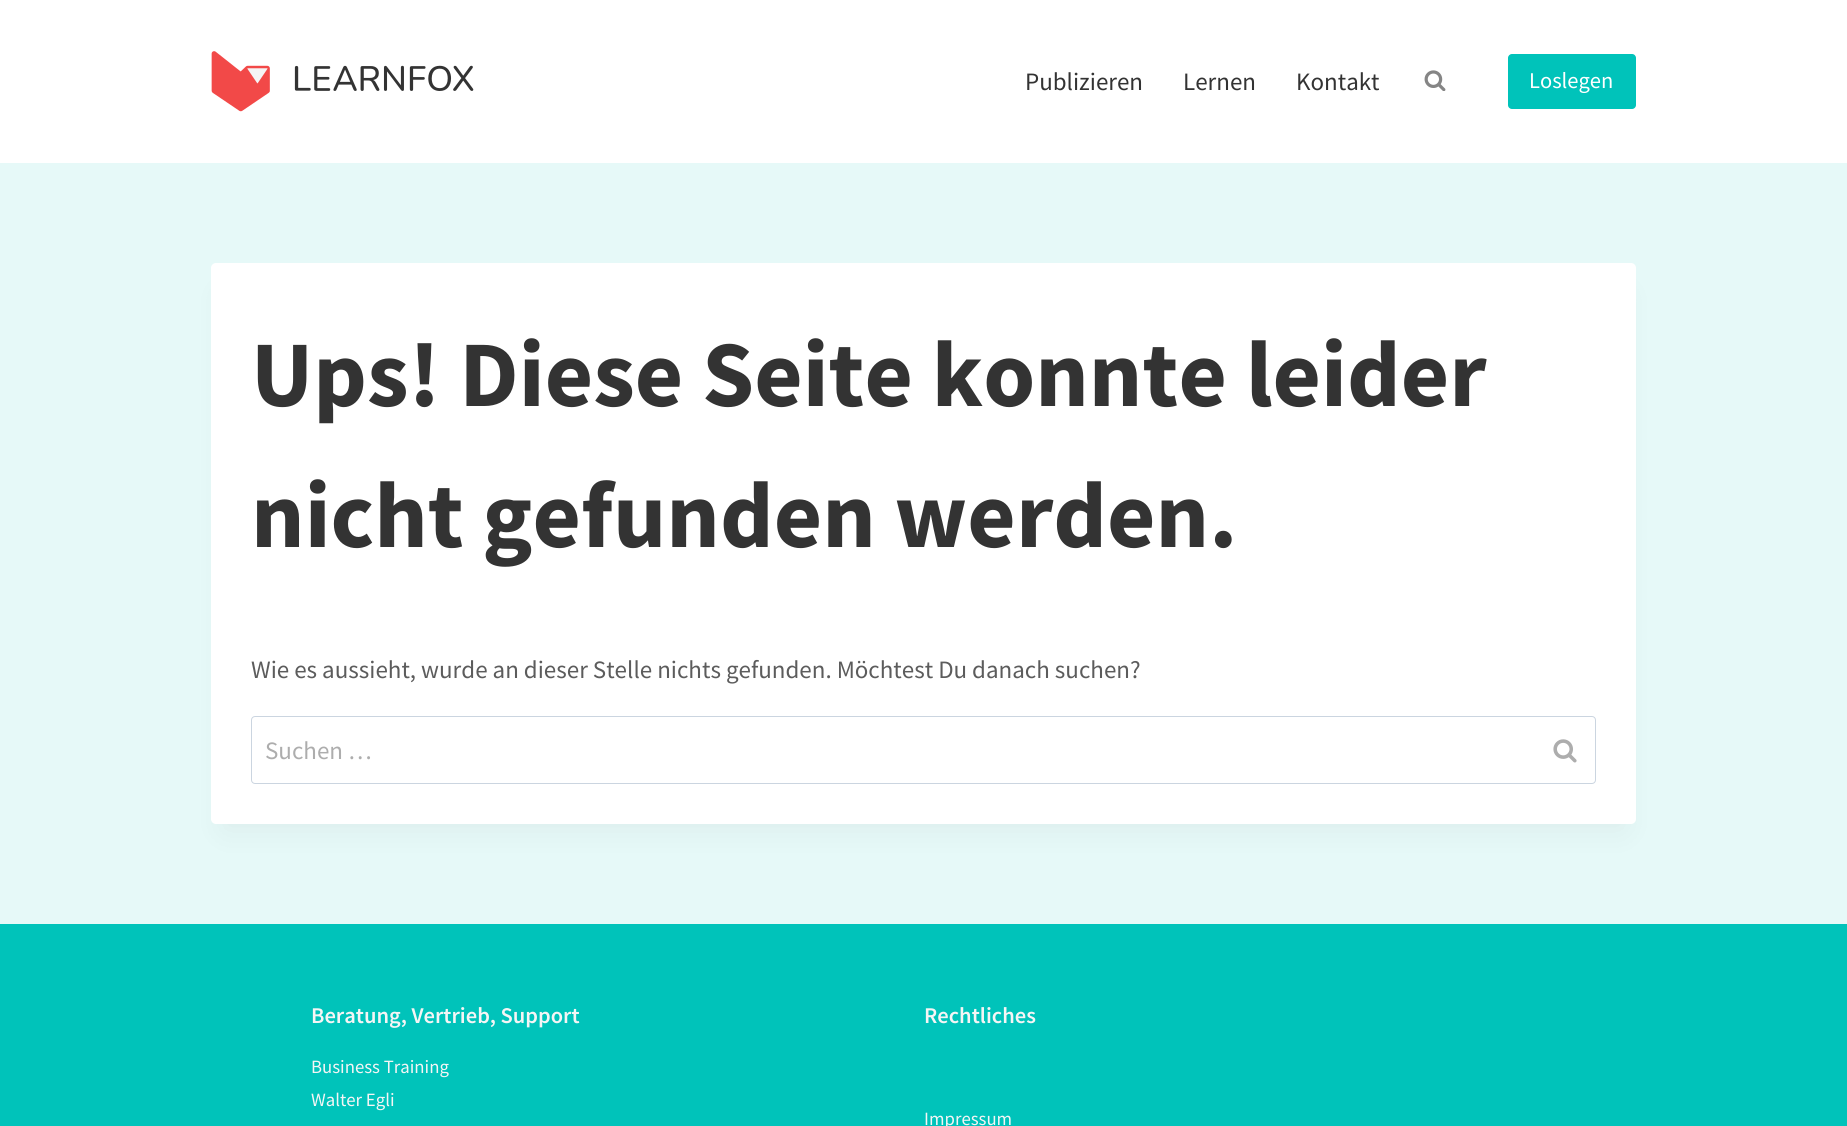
import math
import cairo


def use_color(cr, r, g, b):
  cr.set_source_rgb(r / 255, g / 255, b / 255)

def text(cr, x, y, s, family, size, color, bold=False, italic=False):
  cr.select_font_face(family, cairo.FONT_SLANT_ITALIC if italic else cairo.FONT_SLANT_NORMAL, cairo.FONT_WEIGHT_BOLD if bold else cairo.FONT_WEIGHT_NORMAL)
  cr.set_font_size(size)
  use_color(cr, *color)
  cr.move_to(x, y)
  cr.show_text(s)

def box(cr, x, y, w, h, *color):
  use_color(cr, *color)
  cr.rectangle(x, y, w, h)
  cr.fill()

def round_rect(cr, x, y, w, h, r):
  cr.new_sub_path()
  for i, (u, v) in enumerate([(x + w - r, y + h - r), (x + r, y + h - r), (x + r, y + r), (x + w - r, y + r)]):
    cr.arc(u, v, r, i * math.pi / 2, (i + 1) * math.pi / 2)
  cr.close_path()

def shadow(cr, x, y, w, h, r, blur, alpha):
  cr.push_group_with_content(cairo.CONTENT_ALPHA)
  cr.set_operator(cairo.OPERATOR_SOURCE)
  for i in range(15, -16, -2):
    e = blur * i / 6
    if min(w, h) + 2 * e > 0:
      cr.set_source_rgba(0, 0, 0, alpha * math.erfc((i - 1) / 8.5) / 2)
      round_rect(cr, x - e, y - e, w + 2 * e, h + 2 * e, max(0, min(r + e + blur * .6, min(w, h) / 2 + e)))
      cr.fill()
  cr.mask(cr.pop_group())

def picture(cr, path, x, y, w, h):
  cr.save()
  cr.set_source_surface(cairo.ImageSurface.create_from_png(path), x, y)
  cr.rectangle(x, y, w, h)
  cr.fill()
  cr.restore()

def draw(cr):
  use_color(cr, 230, 249, 248)
  cr.paint()
  box(cr, 0, 0, 1847, 163, 255, 255, 255)
  picture(cr, "img_01.png", 211, 51, 263, 61)
  picture(cr, "img_02.png", 1424, 70, 22, 21)
  use_color(cr, 0, 195, 186)
  round_rect(cr, 1508, 54, 128, 55, 4)
  cr.fill()
  use_color(cr, 0, 0, 0)
  shadow(cr, 224, 294, 1400, 536, 0, 15.5, 0.05)
  use_color(cr, 255, 255, 255)
  round_rect(cr, 211, 263, 1425, 561, 5)
  cr.fill()
  round_rect(cr, 251.5, 716.5, 1344, 67, 3.5)
  use_color(cr, 203, 213, 224)
  cr.set_line_width(1)
  cr.stroke()
  picture(cr, "img_03.png", 1553, 739, 24, 24)
  box(cr, 0, 924, 1847, 202, 0, 195, 186)
  text(cr, 1025, 90, "Publizieren", "Source Sans Pro", 25, (51, 51, 51))
  text(cr, 1183, 90, "Lernen", "Source Sans Pro", 25, (51, 51, 51))
  text(cr, 1296, 90, "Kontakt", "Source Sans Pro", 25, (51, 51, 51))
  text(cr, 1529, 88, "Loslegen", "Source Sans Pro", 22.5, (255, 255, 255))
  text(cr, 251, 406, "Ups! Diese Seite konnte leider", "Source Sans Pro", 93.75, (51, 51, 51), bold=True)
  text(cr, 251, 547, "nicht gefunden werden.", "Source Sans Pro", 93.75, (51, 51, 51), bold=True)
  text(cr, 251, 678, "Wie es aussieht, wurde an dieser Stelle nichts gefunden. Möchtest Du danach suchen?", "Source Sans Pro", 25, (92, 92, 92))
  text(cr, 265, 759, "Suchen …", "Source Sans Pro", 25, (173, 173, 173))
  text(cr, 311, 1023, "Beratung, Vertrieb, Support", "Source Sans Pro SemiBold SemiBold", 22.5, (245, 245, 245))
  text(cr, 311, 1073, "Business Training", "Source Sans Pro", 18.75, (245, 245, 245))
  text(cr, 311, 1106, "Walter Egli", "Source Sans Pro", 18.75, (245, 245, 245))
  text(cr, 924, 1023, "Rechtliches", "Source Sans Pro SemiBold SemiBold", 22.5, (245, 245, 245))
  text(cr, 924, 1125, "Impressum", "Source Sans Pro", 18.75, (245, 245, 245))


surface = cairo.ImageSurface(cairo.FORMAT_RGB24, 1847, 1126)
cr = cairo.Context(surface)
options = cairo.FontOptions()
options.set_hint_metrics(cairo.HINT_METRICS_OFF)
options.set_hint_style(cairo.HINT_STYLE_NONE)
cr.set_font_options(options)
cr.set_miter_limit(4)
draw(cr)
surface.write_to_png("out.png")
